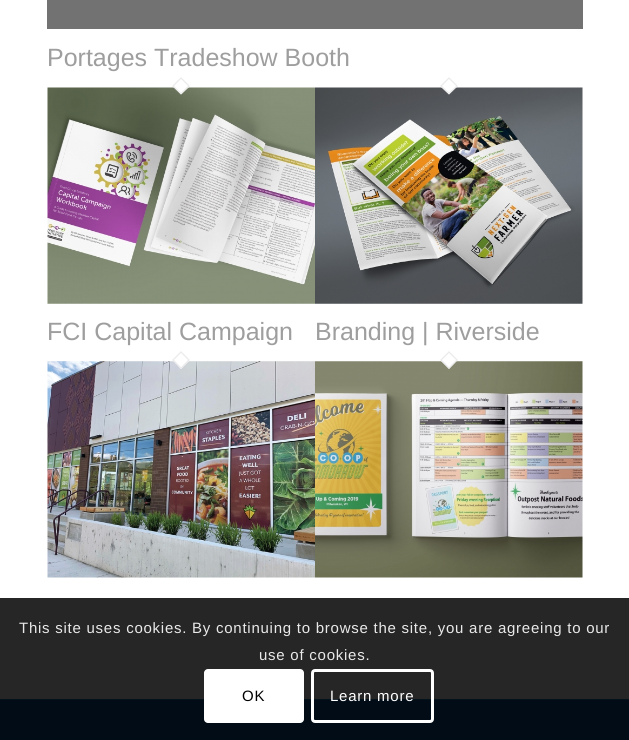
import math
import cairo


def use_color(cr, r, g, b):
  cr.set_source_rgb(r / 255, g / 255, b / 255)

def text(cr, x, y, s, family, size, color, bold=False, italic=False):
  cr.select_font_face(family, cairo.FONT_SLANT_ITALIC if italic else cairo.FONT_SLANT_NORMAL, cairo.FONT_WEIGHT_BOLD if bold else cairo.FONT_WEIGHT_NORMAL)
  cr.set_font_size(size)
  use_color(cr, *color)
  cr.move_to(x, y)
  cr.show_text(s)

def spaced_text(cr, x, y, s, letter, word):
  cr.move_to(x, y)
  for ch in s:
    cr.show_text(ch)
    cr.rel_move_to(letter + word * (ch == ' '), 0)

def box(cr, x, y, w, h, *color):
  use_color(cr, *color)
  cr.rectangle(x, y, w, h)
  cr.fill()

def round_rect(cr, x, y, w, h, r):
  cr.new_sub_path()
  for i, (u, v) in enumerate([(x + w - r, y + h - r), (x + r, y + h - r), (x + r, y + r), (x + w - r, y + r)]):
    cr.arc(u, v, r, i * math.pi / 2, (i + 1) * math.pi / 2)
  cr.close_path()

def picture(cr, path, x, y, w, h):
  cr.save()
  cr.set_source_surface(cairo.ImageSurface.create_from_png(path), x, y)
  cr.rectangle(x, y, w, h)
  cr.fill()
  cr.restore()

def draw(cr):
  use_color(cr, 255, 255, 255)
  cr.paint()
  box(cr, 47, 0, 536, 29, 114, 114, 114)
  picture(cr, "img_01.png", 47, 87, 268, 217)
  use_color(cr, 255, 255, 255)
  cr.new_path()
  cr.move_to(181, 77)
  cr.line_to(190, 86)
  cr.line_to(181, 94.5)
  cr.line_to(172.5, 86)
  cr.close_path()
  cr.fill()
  cr.new_path()
  cr.move_to(181, 78)
  cr.line_to(189, 86)
  cr.line_to(181, 93.5)
  cr.line_to(173, 86)
  cr.close_path()
  use_color(cr, 235, 235, 235)
  cr.set_line_width(1.3)
  cr.stroke()
  picture(cr, "img_02.png", 315, 87, 268, 217)
  use_color(cr, 255, 255, 255)
  cr.new_path()
  cr.move_to(449, 77)
  cr.line_to(457.5, 86)
  cr.line_to(449, 94.5)
  cr.line_to(440, 86)
  cr.close_path()
  cr.fill()
  cr.new_path()
  cr.move_to(449, 78)
  cr.line_to(457, 86)
  cr.line_to(449, 93.5)
  cr.line_to(441, 86)
  cr.close_path()
  use_color(cr, 235, 235, 235)
  cr.stroke()
  picture(cr, "img_03.png", 47, 361, 268, 217)
  use_color(cr, 255, 255, 255)
  cr.new_path()
  cr.move_to(181, 351.5)
  cr.line_to(190, 360)
  cr.line_to(181, 369)
  cr.line_to(172.5, 360)
  cr.close_path()
  cr.fill()
  cr.new_path()
  cr.move_to(181, 352)
  cr.line_to(189, 360)
  cr.line_to(181, 368)
  cr.line_to(173, 360)
  cr.close_path()
  use_color(cr, 235, 235, 235)
  cr.stroke()
  picture(cr, "img_04.png", 315, 361, 268, 217)
  use_color(cr, 255, 255, 255)
  cr.new_path()
  cr.move_to(449, 351.5)
  cr.line_to(457.5, 360)
  cr.line_to(449, 369)
  cr.line_to(440, 360)
  cr.close_path()
  cr.fill()
  cr.new_path()
  cr.move_to(449, 352)
  cr.line_to(457, 360)
  cr.line_to(449, 368)
  cr.line_to(441, 360)
  cr.close_path()
  use_color(cr, 235, 235, 235)
  cr.stroke()
  box(cr, 0, 700, 629, 40, 10, 78, 155)
  box(cr, 0, 699, 629, 1, 27, 118, 188)
  cr.set_source_rgba(0, 0, 0, 0.85)
  cr.rectangle(0, 598, 629, 142)
  cr.fill()
  use_color(cr, 255, 255, 255)
  round_rect(cr, 204, 669, 100, 54, 4)
  cr.fill()
  round_rect(cr, 312.5, 670.5, 120, 51, 2.5)
  cr.set_line_width(3)
  cr.stroke()
  text(cr, 47, 66, "Portages Tradeshow Booth", "Liberation Sans", 25, (158, 158, 158))
  text(cr, 47, 340, "FCI Capital Campaign", "Liberation Sans", 25, (158, 158, 158))
  text(cr, 315, 340, "Branding | Riverside", "Liberation Sans", 25, (158, 158, 158))
  cr.set_font_size(15)
  use_color(cr, 233, 233, 233)
  spaced_text(cr, 19, 633, "This site uses cookies. By continuing to browse the site, you are agreeing to our", 0.75, 0)
  spaced_text(cr, 259, 660, "use of cookies.", 0.75, 0)
  use_color(cr, 0, 0, 0)
  spaced_text(cr, 242, 701, "OK", 0.75, 0)
  use_color(cr, 255, 255, 255)
  spaced_text(cr, 330, 701, "Learn more", 0.75, 0)


surface = cairo.ImageSurface(cairo.FORMAT_RGB24, 629, 740)
cr = cairo.Context(surface)
options = cairo.FontOptions()
options.set_hint_metrics(cairo.HINT_METRICS_OFF)
options.set_hint_style(cairo.HINT_STYLE_NONE)
cr.set_font_options(options)
cr.set_miter_limit(4)
draw(cr)
surface.write_to_png("out.png")
